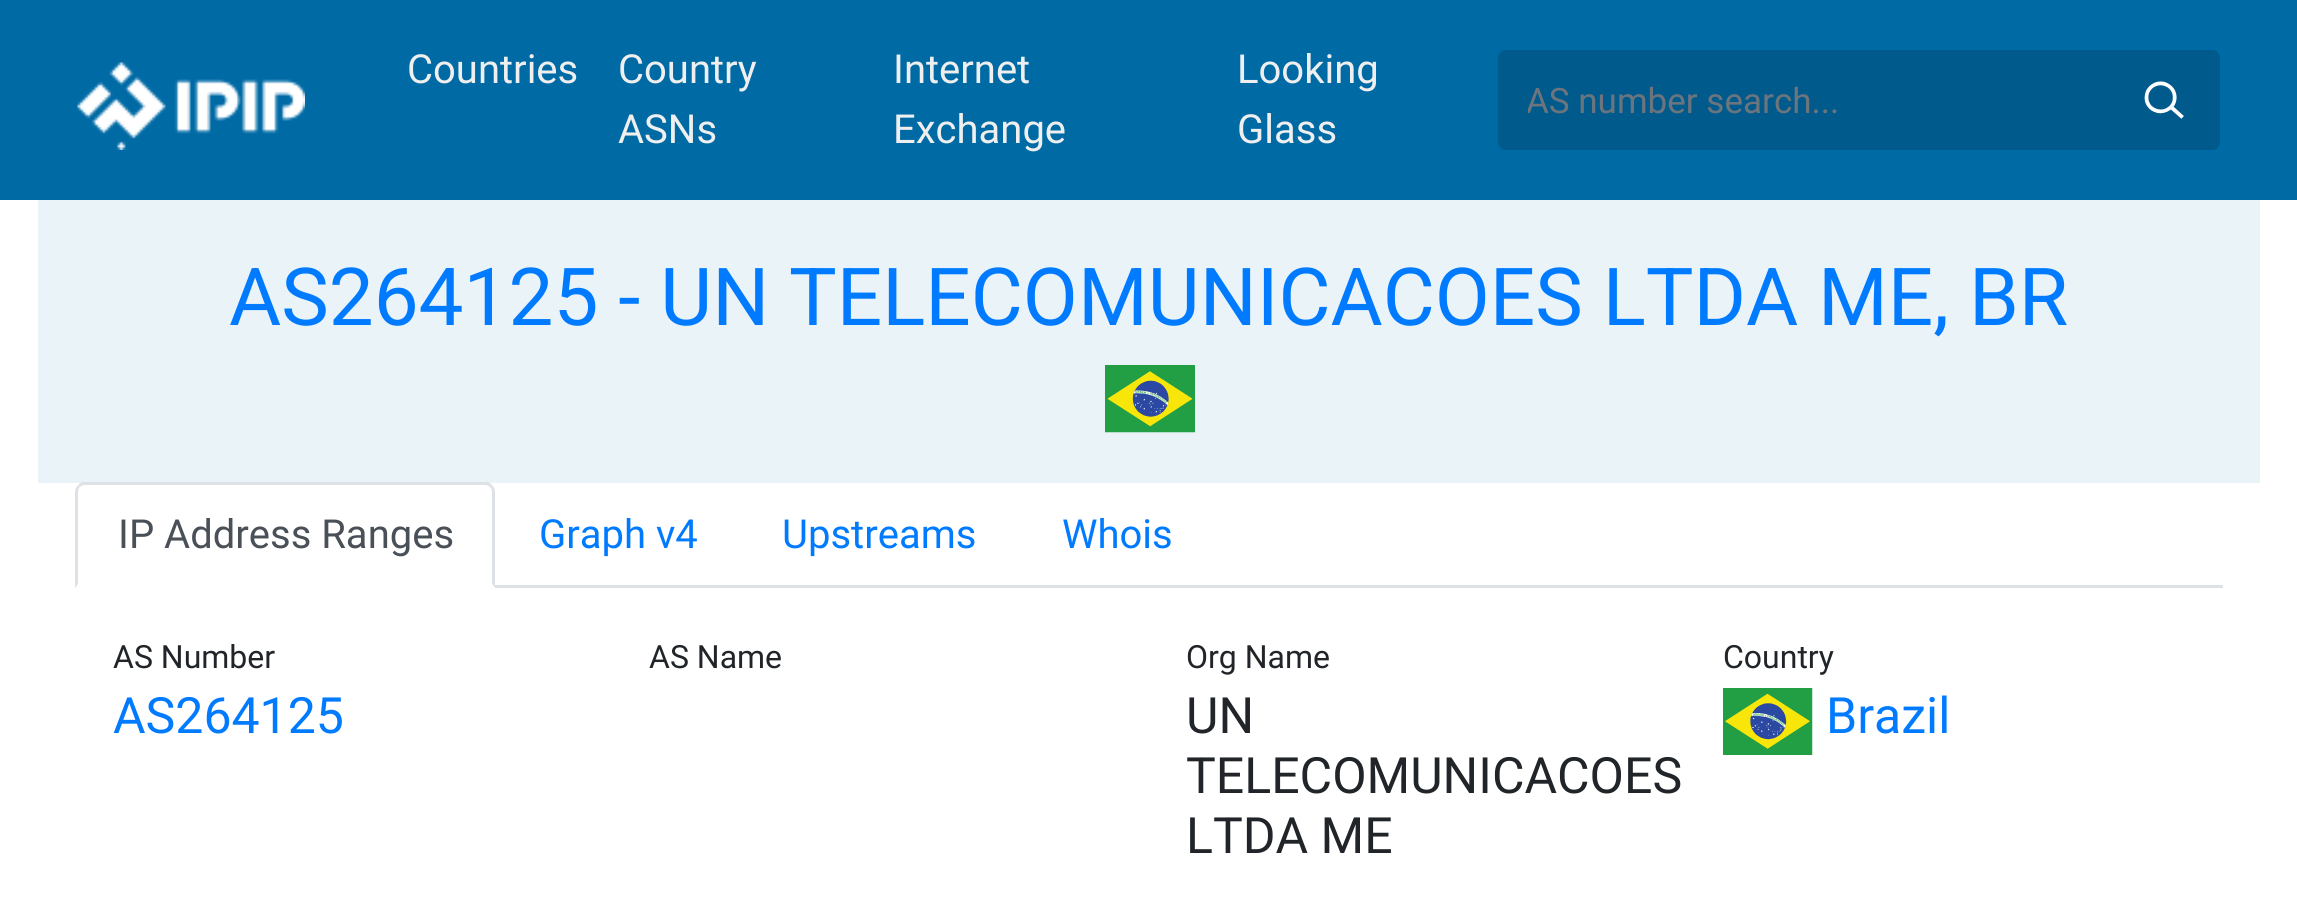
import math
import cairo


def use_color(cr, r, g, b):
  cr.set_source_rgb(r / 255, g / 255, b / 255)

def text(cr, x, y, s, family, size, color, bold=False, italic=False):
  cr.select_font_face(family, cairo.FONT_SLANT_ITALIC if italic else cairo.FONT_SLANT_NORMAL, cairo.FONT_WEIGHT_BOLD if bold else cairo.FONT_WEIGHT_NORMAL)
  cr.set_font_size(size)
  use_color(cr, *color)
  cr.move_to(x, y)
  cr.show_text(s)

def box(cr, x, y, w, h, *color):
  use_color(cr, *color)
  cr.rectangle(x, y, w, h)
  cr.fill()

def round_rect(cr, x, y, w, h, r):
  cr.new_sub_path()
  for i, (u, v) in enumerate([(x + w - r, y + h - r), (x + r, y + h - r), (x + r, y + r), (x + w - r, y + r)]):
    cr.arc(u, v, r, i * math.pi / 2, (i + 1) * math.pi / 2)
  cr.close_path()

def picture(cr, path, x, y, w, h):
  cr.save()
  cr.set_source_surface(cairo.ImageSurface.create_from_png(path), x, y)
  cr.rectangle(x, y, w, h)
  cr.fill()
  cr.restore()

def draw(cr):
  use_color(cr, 255, 255, 255)
  cr.paint()
  box(cr, 0, 0, 2297, 200, 0, 106, 165)
  picture(cr, "img_01.png", 77, 62, 228, 88)
  use_color(cr, 0, 90, 140)
  round_rect(cr, 1498, 50, 722, 100, 8)
  cr.fill()
  picture(cr, "img_02.png", 2144, 81, 40, 38)
  box(cr, 38, 200, 2222, 283, 234, 243, 248)
  picture(cr, "img_03.png", 1105, 365, 90, 68)
  box(cr, 495, 585, 1728, 3, 222, 226, 230)
  cr.new_path()
  cr.move_to(85, 485)
  cr.curve_to(83, 485, 81, 486, 80, 487)
  cr.line_to(78, 485)
  cr.curve_to(79, 484, 80, 483, 82, 482)
  cr.line_to(488, 482)
  cr.curve_to(490, 483, 491, 484, 492, 485)
  cr.line_to(490, 487)
  cr.curve_to(489, 486, 487, 485, 485, 485)
  cr.close_path()
  cr.fill()
  cr.new_path()
  cr.move_to(495, 588)
  cr.line_to(495, 492)
  cr.curve_to(495, 490, 494, 487, 492, 485)
  cr.line_to(490, 487)
  cr.curve_to(491, 488, 492, 490, 492, 492)
  cr.line_to(492, 584)
  cr.close_path()
  cr.fill()
  use_color(cr, 255, 255, 255)
  cr.new_path()
  cr.move_to(495, 588)
  cr.line_to(75, 588)
  cr.line_to(78, 584)
  cr.line_to(78, 585)
  cr.line_to(492, 585)
  cr.line_to(492, 584)
  cr.close_path()
  cr.fill()
  use_color(cr, 222, 226, 230)
  cr.new_path()
  cr.move_to(75, 588)
  cr.line_to(78, 584)
  cr.line_to(78, 492)
  cr.curve_to(78, 490, 79, 488, 80, 487)
  cr.line_to(78, 485)
  cr.curve_to(76, 487, 75, 490, 75, 492)
  cr.close_path()
  cr.fill()
  picture(cr, "img_04.png", 1723, 688, 90, 67)
  text(cr, 407, 83, "Countries", "Roboto", 40, (239, 239, 239))
  text(cr, 618, 83, "Country", "Roboto", 40, (239, 239, 239))
  text(cr, 618, 143, "ASNs", "Roboto", 40, (239, 239, 239))
  text(cr, 893, 83, "Internet", "Roboto", 40, (239, 239, 239))
  text(cr, 893, 143, "Exchange", "Roboto", 40, (239, 239, 239))
  text(cr, 1237, 83, "Looking", "Roboto", 40, (239, 239, 239))
  text(cr, 1237, 143, "Glass", "Roboto", 40, (239, 239, 239))
  cr.save()
  cr.rectangle(1528, 80, 662, 40)
  cr.clip()
  text(cr, 1526, 113, "AS number search...", "Roboto", 35, (108, 117, 125))
  cr.restore()
  text(cr, 229, 325, "AS264125 - UN TELECOMUNICACOES LTDA ME, BR", "Roboto", 80, (0, 123, 255))
  text(cr, 118, 548, "IP Address Ranges", "Roboto", 40, (73, 80, 87))
  text(cr, 539, 548, "Graph v4", "Roboto", 40, (0, 123, 255))
  text(cr, 782, 548, "Upstreams", "Roboto", 40, (0, 123, 255))
  text(cr, 1062, 548, "Whois", "Roboto", 40, (0, 123, 255))
  text(cr, 113, 668, "AS Number", "Roboto", 32, (33, 37, 41))
  text(cr, 113, 733, "AS264125", "Roboto", 50, (0, 123, 255))
  text(cr, 649, 668, "AS Name", "Roboto", 32, (33, 37, 41))
  text(cr, 1186, 668, "Org Name", "Roboto", 32, (33, 37, 41))
  text(cr, 1186, 733, "UN", "Roboto", 50, (33, 37, 41))
  text(cr, 1186, 793, "TELECOMUNICACOES", "Roboto", 50, (33, 37, 41))
  text(cr, 1186, 853, "LTDA ME", "Roboto", 50, (33, 37, 41))
  text(cr, 1723, 668, "Country", "Roboto", 32, (33, 37, 41))
  text(cr, 1826, 733, "Brazil", "Roboto", 50, (0, 123, 255))


surface = cairo.ImageSurface(cairo.FORMAT_RGB24, 2297, 898)
cr = cairo.Context(surface)
options = cairo.FontOptions()
options.set_hint_metrics(cairo.HINT_METRICS_OFF)
options.set_hint_style(cairo.HINT_STYLE_NONE)
cr.set_font_options(options)
cr.set_miter_limit(4)
draw(cr)
surface.write_to_png("out.png")
